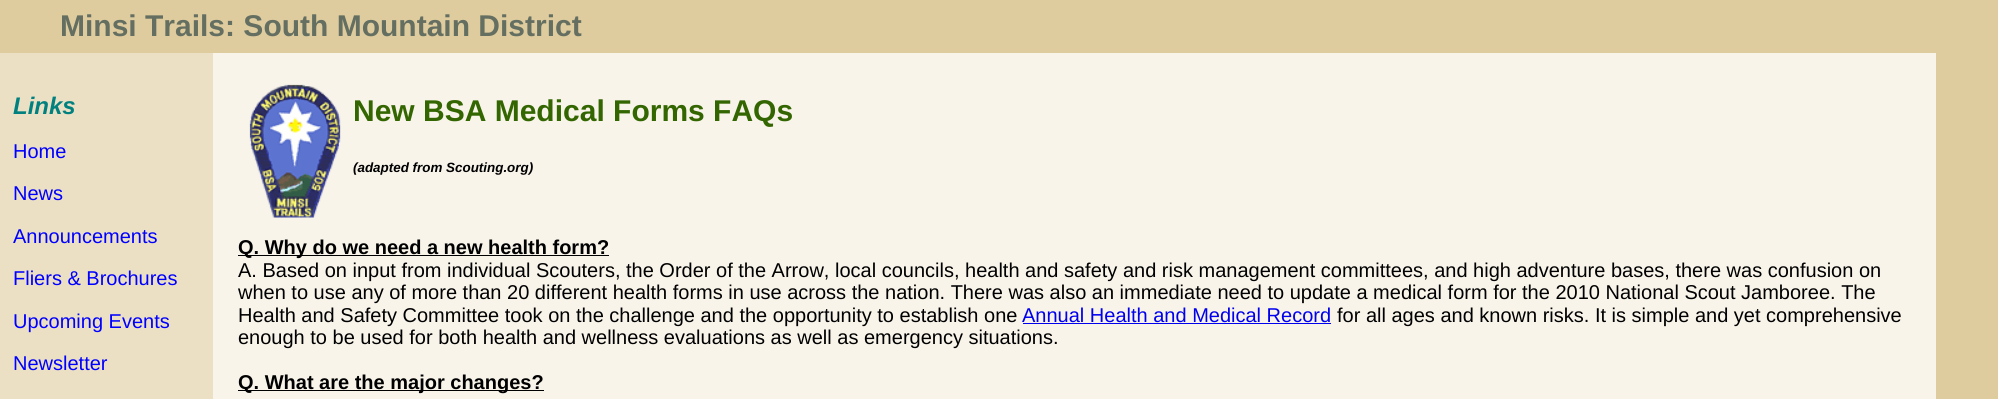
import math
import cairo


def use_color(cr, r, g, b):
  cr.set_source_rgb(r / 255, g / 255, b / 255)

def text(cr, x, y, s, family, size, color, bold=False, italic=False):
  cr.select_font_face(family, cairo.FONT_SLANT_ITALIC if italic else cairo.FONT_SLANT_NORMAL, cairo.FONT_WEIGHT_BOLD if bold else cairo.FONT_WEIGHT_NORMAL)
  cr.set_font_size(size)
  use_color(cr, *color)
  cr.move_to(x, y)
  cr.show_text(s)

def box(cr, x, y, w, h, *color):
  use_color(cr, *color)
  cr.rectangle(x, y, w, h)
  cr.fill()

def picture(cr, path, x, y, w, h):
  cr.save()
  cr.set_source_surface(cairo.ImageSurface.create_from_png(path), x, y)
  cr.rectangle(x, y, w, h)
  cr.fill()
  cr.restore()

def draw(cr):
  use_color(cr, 223, 204, 158)
  cr.paint()
  box(cr, 0, 53, 213, 346, 235, 224, 196)
  box(cr, 213, 53, 1723, 346, 248, 244, 234)
  picture(cr, "img_01.png", 249, 84, 92, 134)
  box(cr, 238, 255, 371, 1, 0, 0, 0)
  box(cr, 1023, 323, 308, 1, 0, 0, 238)
  box(cr, 238, 390, 306, 1, 0, 0, 0)
  text(cr, 60, 36, "Minsi Trails: South Mountain District", "Liberation Sans", 30, (100, 111, 97), bold=True)
  text(cr, 13, 114, "Links", "Liberation Sans", 24, (0, 128, 126), bold=True, italic=True)
  text(cr, 13, 158, "Home", "Liberation Sans", 20, (0, 0, 255))
  text(cr, 13, 200, "News", "Liberation Sans", 20, (0, 0, 255))
  text(cr, 13, 243, "Announcements", "Liberation Sans", 20, (0, 0, 255))
  text(cr, 13, 285, "Fliers & Brochures", "Liberation Sans", 20, (0, 0, 255))
  text(cr, 13, 328, "Upcoming Events", "Liberation Sans", 20, (0, 0, 255))
  text(cr, 13, 370, "Newsletter", "Liberation Sans", 20, (0, 0, 255))
  text(cr, 353, 121, "New BSA Medical Forms FAQs", "Liberation Sans", 30, (51, 102, 0), bold=True)
  text(cr, 353, 172, "(adapted from Scouting.org)", "Liberation Sans", 13.4, (0, 0, 0), bold=True, italic=True)
  text(cr, 238, 254, "Q. Why do we need a new health form?", "Liberation Sans", 20, (0, 0, 0), bold=True)
  text(cr, 238, 277, "A. Based on input from individual Scouters, the Order of the Arrow, local councils, health and safety and risk management committees, and high adventure bases, there was confusion on", "Liberation Sans", 20, (0, 0, 0))
  text(cr, 238, 299, "when to use any of more than 20 different health forms in use across the nation. There was also an immediate need to update a medical form for the 2010 National Scout Jamboree. The", "Liberation Sans", 20, (0, 0, 0))
  text(cr, 238, 322, "Health and Safety Committee took on the challenge and the opportunity to establish one", "Liberation Sans", 20, (0, 0, 0))
  text(cr, 1022, 322, "Annual Health and Medical Record", "Liberation Sans", 20, (0, 0, 238))
  text(cr, 1337, 322, "for all ages and known risks. It is simple and yet comprehensive", "Liberation Sans", 20, (0, 0, 0))
  text(cr, 238, 344, "enough to be used for both health and wellness evaluations as well as emergency situations.", "Liberation Sans", 20, (0, 0, 0))
  text(cr, 238, 389, "Q. What are the major changes?", "Liberation Sans", 20, (0, 0, 0), bold=True)


surface = cairo.ImageSurface(cairo.FORMAT_RGB24, 1998, 399)
cr = cairo.Context(surface)
options = cairo.FontOptions()
options.set_hint_metrics(cairo.HINT_METRICS_OFF)
options.set_hint_style(cairo.HINT_STYLE_NONE)
cr.set_font_options(options)
cr.set_miter_limit(4)
draw(cr)
surface.write_to_png("out.png")
